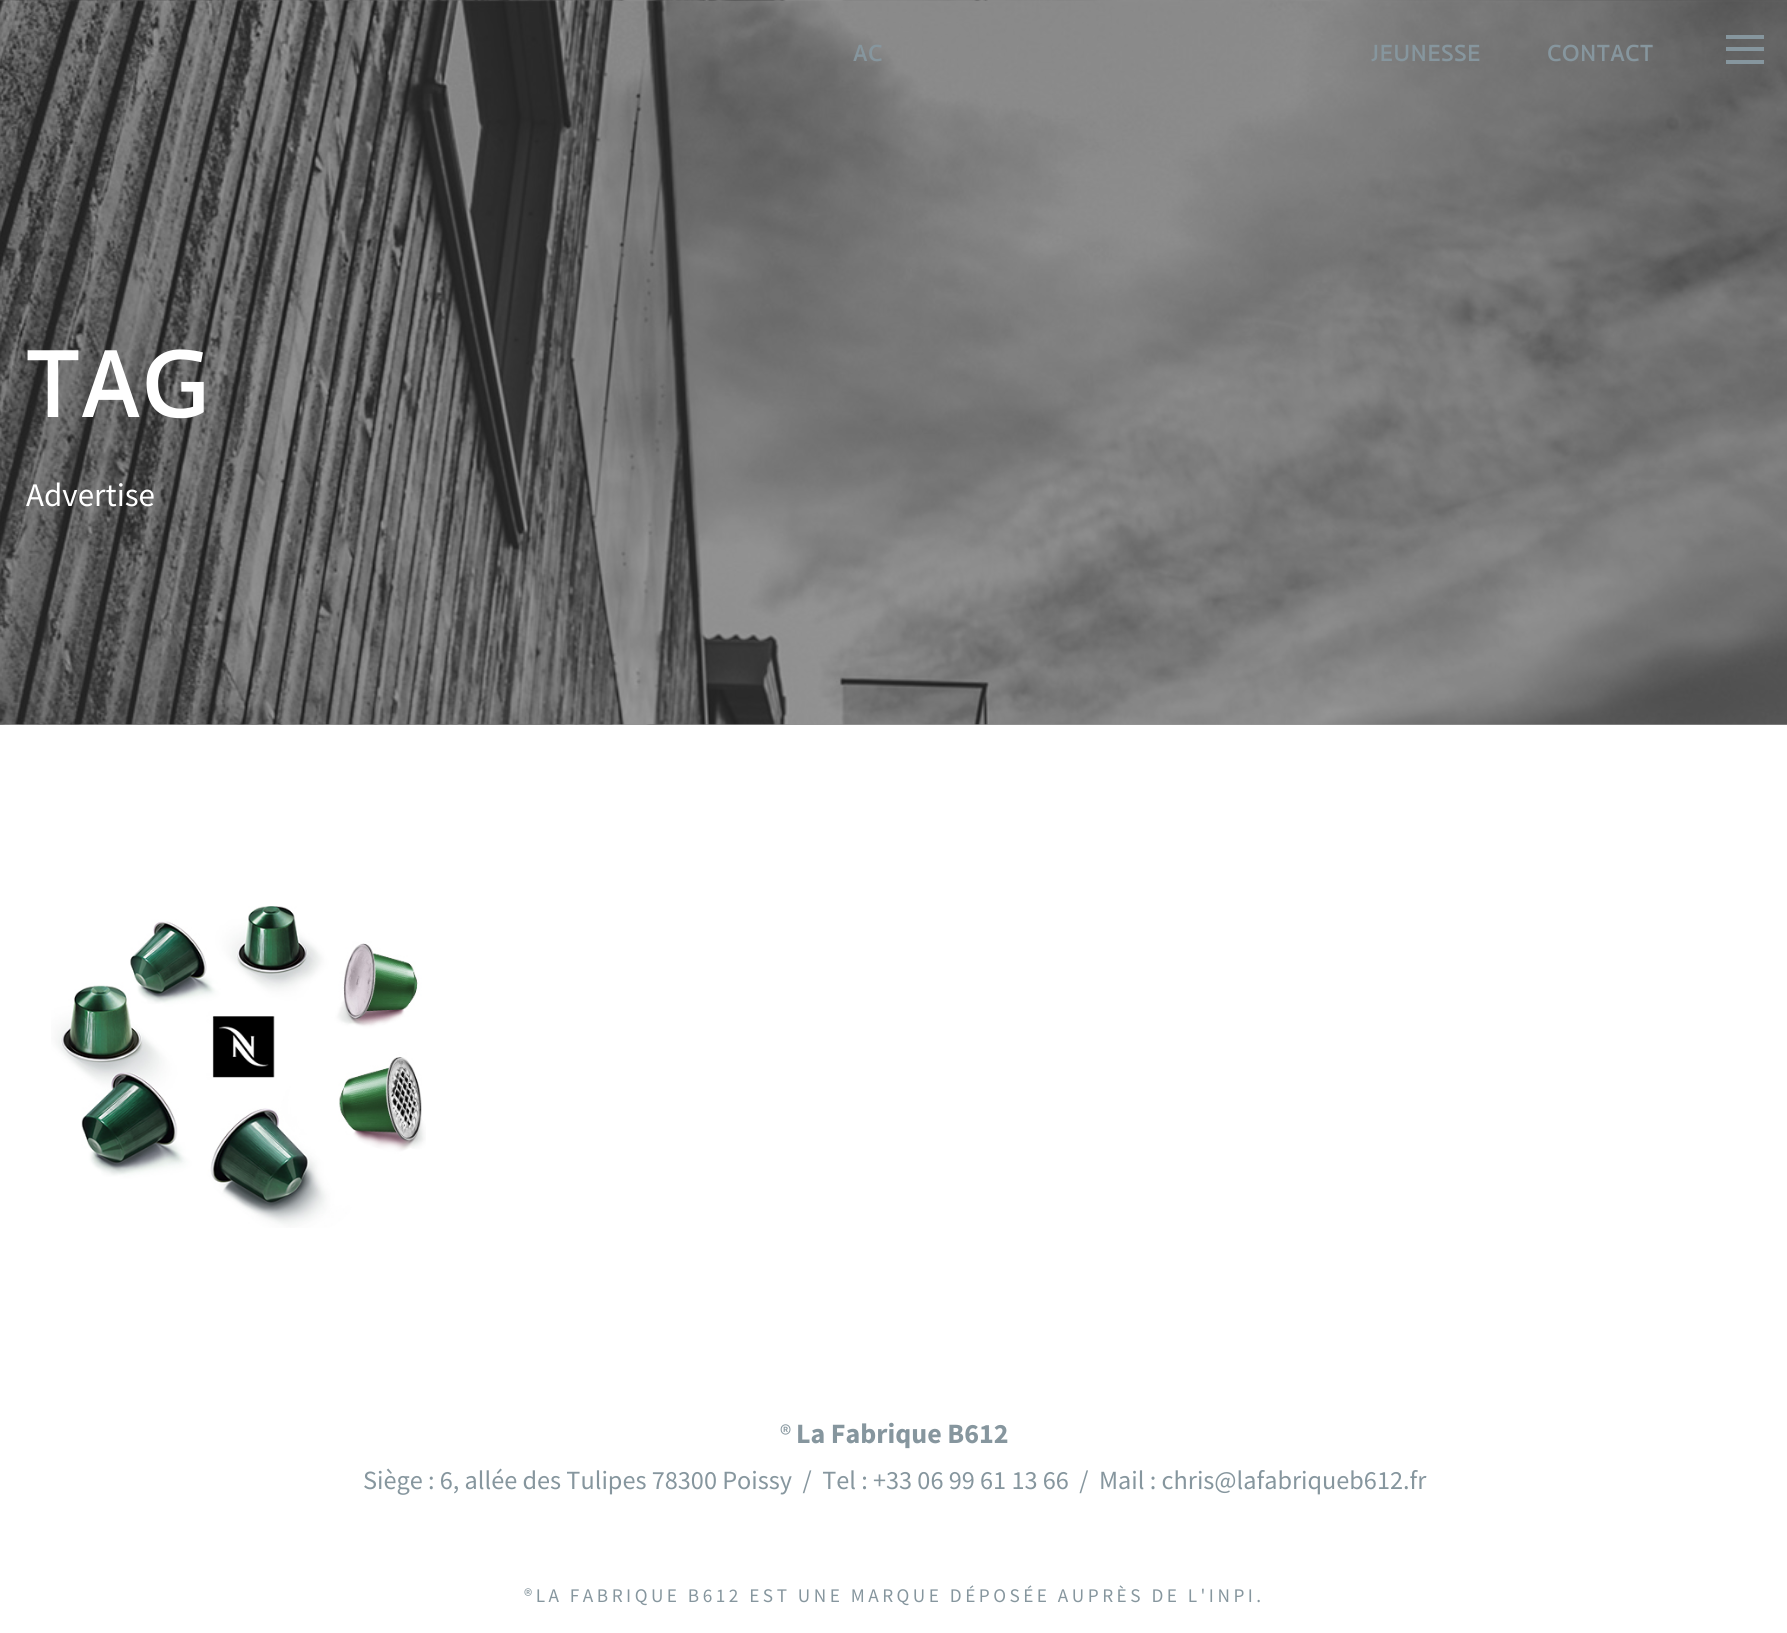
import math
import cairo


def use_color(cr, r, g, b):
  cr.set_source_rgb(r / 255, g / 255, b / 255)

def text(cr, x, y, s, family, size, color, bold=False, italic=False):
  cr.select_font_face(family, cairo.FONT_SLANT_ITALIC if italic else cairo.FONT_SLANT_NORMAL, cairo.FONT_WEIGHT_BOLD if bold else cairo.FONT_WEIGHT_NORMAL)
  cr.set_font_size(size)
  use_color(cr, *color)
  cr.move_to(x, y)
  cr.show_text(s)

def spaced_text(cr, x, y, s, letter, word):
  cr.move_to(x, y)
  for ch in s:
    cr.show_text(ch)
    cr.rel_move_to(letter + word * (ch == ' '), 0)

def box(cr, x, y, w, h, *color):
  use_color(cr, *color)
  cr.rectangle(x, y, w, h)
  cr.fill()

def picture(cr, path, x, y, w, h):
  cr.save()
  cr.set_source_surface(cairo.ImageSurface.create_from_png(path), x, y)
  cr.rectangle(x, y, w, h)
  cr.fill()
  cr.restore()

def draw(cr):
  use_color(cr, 255, 255, 255)
  cr.paint()
  box(cr, 0, 724, 1787, 1, 154, 154, 154)
  picture(cr, "img_01.png", 0, 0, 1787, 725)
  box(cr, 1726, 35, 38, 4, 134, 150, 158)
  box(cr, 1726, 47, 38, 4, 134, 150, 158)
  box(cr, 1726, 60, 38, 4, 134, 150, 158)
  picture(cr, "img_02.png", 51, 906, 375, 322)
  cr.select_font_face("Actor", cairo.FONT_SLANT_NORMAL, cairo.FONT_WEIGHT_BOLD)
  cr.set_font_size(22.75)
  spaced_text(cr, 853, 61, "AC", 1, 0)
  spaced_text(cr, 1371, 61, "JEUNESSE", 1, 0)
  spaced_text(cr, 1547, 61, "CONTACT", 1, 0)
  cr.set_font_size(94)
  use_color(cr, 255, 255, 255)
  spaced_text(cr, 26, 417, "TAG", 3.5, 0)
  text(cr, 26, 506, "Advertise", "Source Sans Pro", 33, (255, 255, 255))
  text(cr, 780, 1443, "®", "Source Sans Pro", 26.25, (134, 150, 158))
  text(cr, 796, 1443, "La Fabrique B612", "Source Sans Pro", 28, (134, 150, 158), bold=True)
  text(cr, 363, 1489, "Siège : 6, allée des Tulipes 78300 Poissy  /  Tel : +33 06 99 61 13 66  /  Mail : chris@lafabriqueb612.fr", "Source Sans Pro", 26.25, (134, 150, 158))
  cr.set_font_size(19.25)
  spaced_text(cr, 524, 1602, "®LA FABRIQUE B612 EST UNE MARQUE DÉPOSÉE AUPRÈS DE L'INPI.", 3.5, 0)


surface = cairo.ImageSurface(cairo.FORMAT_RGB24, 1787, 1633)
cr = cairo.Context(surface)
options = cairo.FontOptions()
options.set_hint_metrics(cairo.HINT_METRICS_OFF)
options.set_hint_style(cairo.HINT_STYLE_NONE)
cr.set_font_options(options)
cr.set_miter_limit(4)
draw(cr)
surface.write_to_png("out.png")
